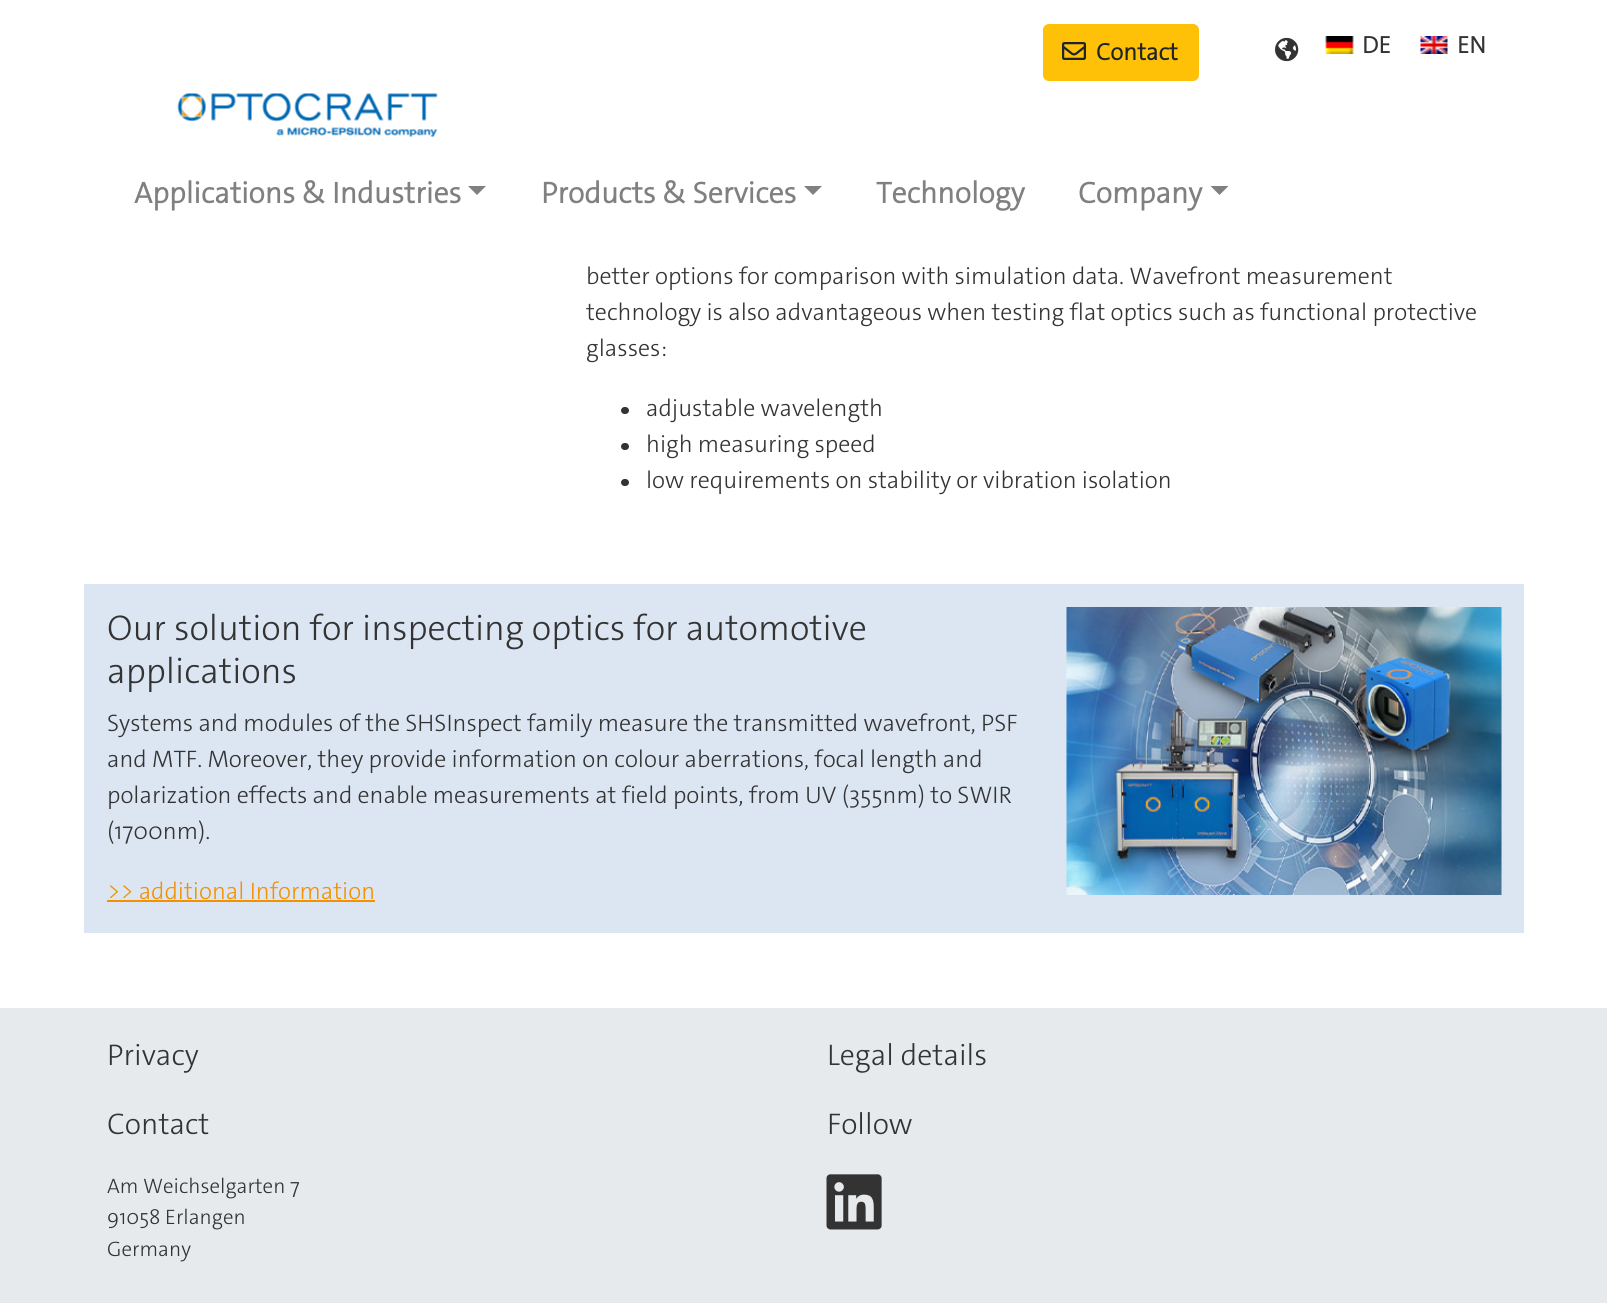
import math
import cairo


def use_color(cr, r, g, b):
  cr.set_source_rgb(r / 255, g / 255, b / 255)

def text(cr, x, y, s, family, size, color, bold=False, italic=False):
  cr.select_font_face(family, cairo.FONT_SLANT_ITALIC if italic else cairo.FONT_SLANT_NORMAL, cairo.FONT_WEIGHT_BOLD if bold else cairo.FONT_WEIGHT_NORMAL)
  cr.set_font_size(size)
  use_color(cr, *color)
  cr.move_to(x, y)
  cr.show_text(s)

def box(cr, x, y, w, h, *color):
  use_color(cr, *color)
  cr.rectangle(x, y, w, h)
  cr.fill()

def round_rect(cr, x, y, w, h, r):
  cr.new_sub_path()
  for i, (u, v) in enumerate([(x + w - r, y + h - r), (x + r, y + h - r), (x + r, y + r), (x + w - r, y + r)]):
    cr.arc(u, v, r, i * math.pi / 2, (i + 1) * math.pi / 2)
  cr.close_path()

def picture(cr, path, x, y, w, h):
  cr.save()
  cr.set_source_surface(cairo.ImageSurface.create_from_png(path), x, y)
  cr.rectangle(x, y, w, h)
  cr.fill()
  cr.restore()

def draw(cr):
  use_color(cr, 255, 255, 255)
  cr.paint()
  use_color(cr, 255, 193, 7)
  round_rect(cr, 1044, 25, 154, 55, 5)
  cr.fill_preserve()
  cr.stroke()
  picture(cr, "img_01.png", 1062, 42, 24, 18)
  picture(cr, "img_02.png", 1275, 37, 24, 25)
  picture(cr, "img_03.png", 1325, 36, 29, 18)
  picture(cr, "img_04.png", 1420, 36, 28, 18)
  picture(cr, "img_05.png", 177, 93, 261, 44)
  use_color(cr, 128, 128, 128)
  cr.new_path()
  cr.move_to(468, 186)
  cr.line_to(486, 186)
  cr.line_to(477, 195)
  cr.close_path()
  cr.fill()
  cr.new_path()
  cr.move_to(804, 186)
  cr.line_to(822, 186)
  cr.line_to(813, 195)
  cr.close_path()
  cr.fill()
  cr.new_path()
  cr.move_to(1210.5, 186)
  cr.line_to(1228.5, 186)
  cr.line_to(1219.5, 195)
  cr.close_path()
  cr.fill()
  use_color(cr, 51, 51, 51)
  round_rect(cr, 621, 407, 8, 7, 3.5)
  cr.fill()
  round_rect(cr, 621, 443, 8, 7, 3.5)
  cr.fill()
  round_rect(cr, 621, 479, 8, 7, 3.5)
  cr.fill()
  box(cr, 84, 584, 1440, 349, 220, 230, 242)
  box(cr, 107, 900, 268, 2, 243, 145, 0)
  picture(cr, "img_06.png", 1066, 607, 436, 288)
  box(cr, 0, 1008, 1607, 295, 231, 234, 237)
  picture(cr, "img_07.png", 826, 1174, 56, 56)
  text(cr, 1096, 60, "Contact", "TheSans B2", 24, (33, 37, 41), bold=True)
  text(cr, 1362, 53, "DE", "TheSans B2", 24, (51, 51, 51), bold=True)
  text(cr, 1457, 53, "EN", "TheSans B2", 24, (51, 51, 51), bold=True)
  text(cr, 134, 203, "Applications & Industries", "TheSans B2", 30, (128, 128, 128), bold=True)
  text(cr, 541, 203, "Products & Services", "TheSans B2", 30, (128, 128, 128), bold=True)
  text(cr, 876, 203, "Technology", "TheSans B2", 30, (128, 128, 128), bold=True)
  text(cr, 1078, 203, "Company", "TheSans B2", 30, (128, 128, 128), bold=True)
  text(cr, 586, 284, "better options for comparison with simulation data. Wavefront measurement", "TheSans B2 Light", 24, (51, 51, 51))
  text(cr, 586, 320, "technology is also advantageous when testing flat optics such as functional protective", "TheSans B2 Light", 24, (51, 51, 51))
  text(cr, 586, 356, "glasses:", "TheSans B2 Light", 24, (51, 51, 51))
  text(cr, 646, 416, "adjustable wavelength", "TheSans B2 Light", 24, (51, 51, 51))
  text(cr, 646, 452, "high measuring speed", "TheSans B2 Light", 24, (51, 51, 51))
  text(cr, 646, 488, "low requirements on stability or vibration isolation", "TheSans B2 Light", 24, (51, 51, 51))
  text(cr, 107, 640, "Our solution for inspecting optics for automotive", "TheSans B2 Light", 36, (51, 51, 51))
  text(cr, 107, 683, "applications", "TheSans B2 Light", 36, (51, 51, 51))
  text(cr, 107, 731, "Systems and modules of the SHSInspect family measure the transmitted wavefront, PSF", "TheSans B2 Light", 24, (51, 51, 51))
  text(cr, 107, 767, "and MTF. Moreover, they provide information on colour aberrations, focal length and", "TheSans B2 Light", 24, (51, 51, 51))
  text(cr, 107, 803, "polarization effects and enable measurements at field points, from UV (355nm) to SWIR", "TheSans B2 Light", 24, (51, 51, 51))
  text(cr, 107, 839, "(1700nm).", "TheSans B2 Light", 24, (51, 51, 51))
  text(cr, 107, 899, ">> additional Information", "TheSans B2 Light", 24, (243, 145, 0))
  text(cr, 107, 1065, "Privacy", "TheSans B2 Light", 30, (51, 51, 51))
  text(cr, 827, 1065, "Legal details", "TheSans B2 Light", 30, (51, 51, 51))
  text(cr, 107, 1134, "Contact", "TheSans B2 Light", 30, (51, 51, 51))
  text(cr, 107, 1193, "Am Weichselgarten 7", "TheSans B2 Light", 21, (51, 51, 51))
  text(cr, 107, 1224, "91058 Erlangen", "TheSans B2 Light", 21, (51, 51, 51))
  text(cr, 107, 1256, "Germany", "TheSans B2 Light", 21, (51, 51, 51))
  text(cr, 827, 1134, "Follow", "TheSans B2 Light", 30, (51, 51, 51))


surface = cairo.ImageSurface(cairo.FORMAT_RGB24, 1607, 1303)
cr = cairo.Context(surface)
options = cairo.FontOptions()
options.set_hint_metrics(cairo.HINT_METRICS_OFF)
options.set_hint_style(cairo.HINT_STYLE_NONE)
cr.set_font_options(options)
cr.set_miter_limit(4)
draw(cr)
surface.write_to_png("out.png")
